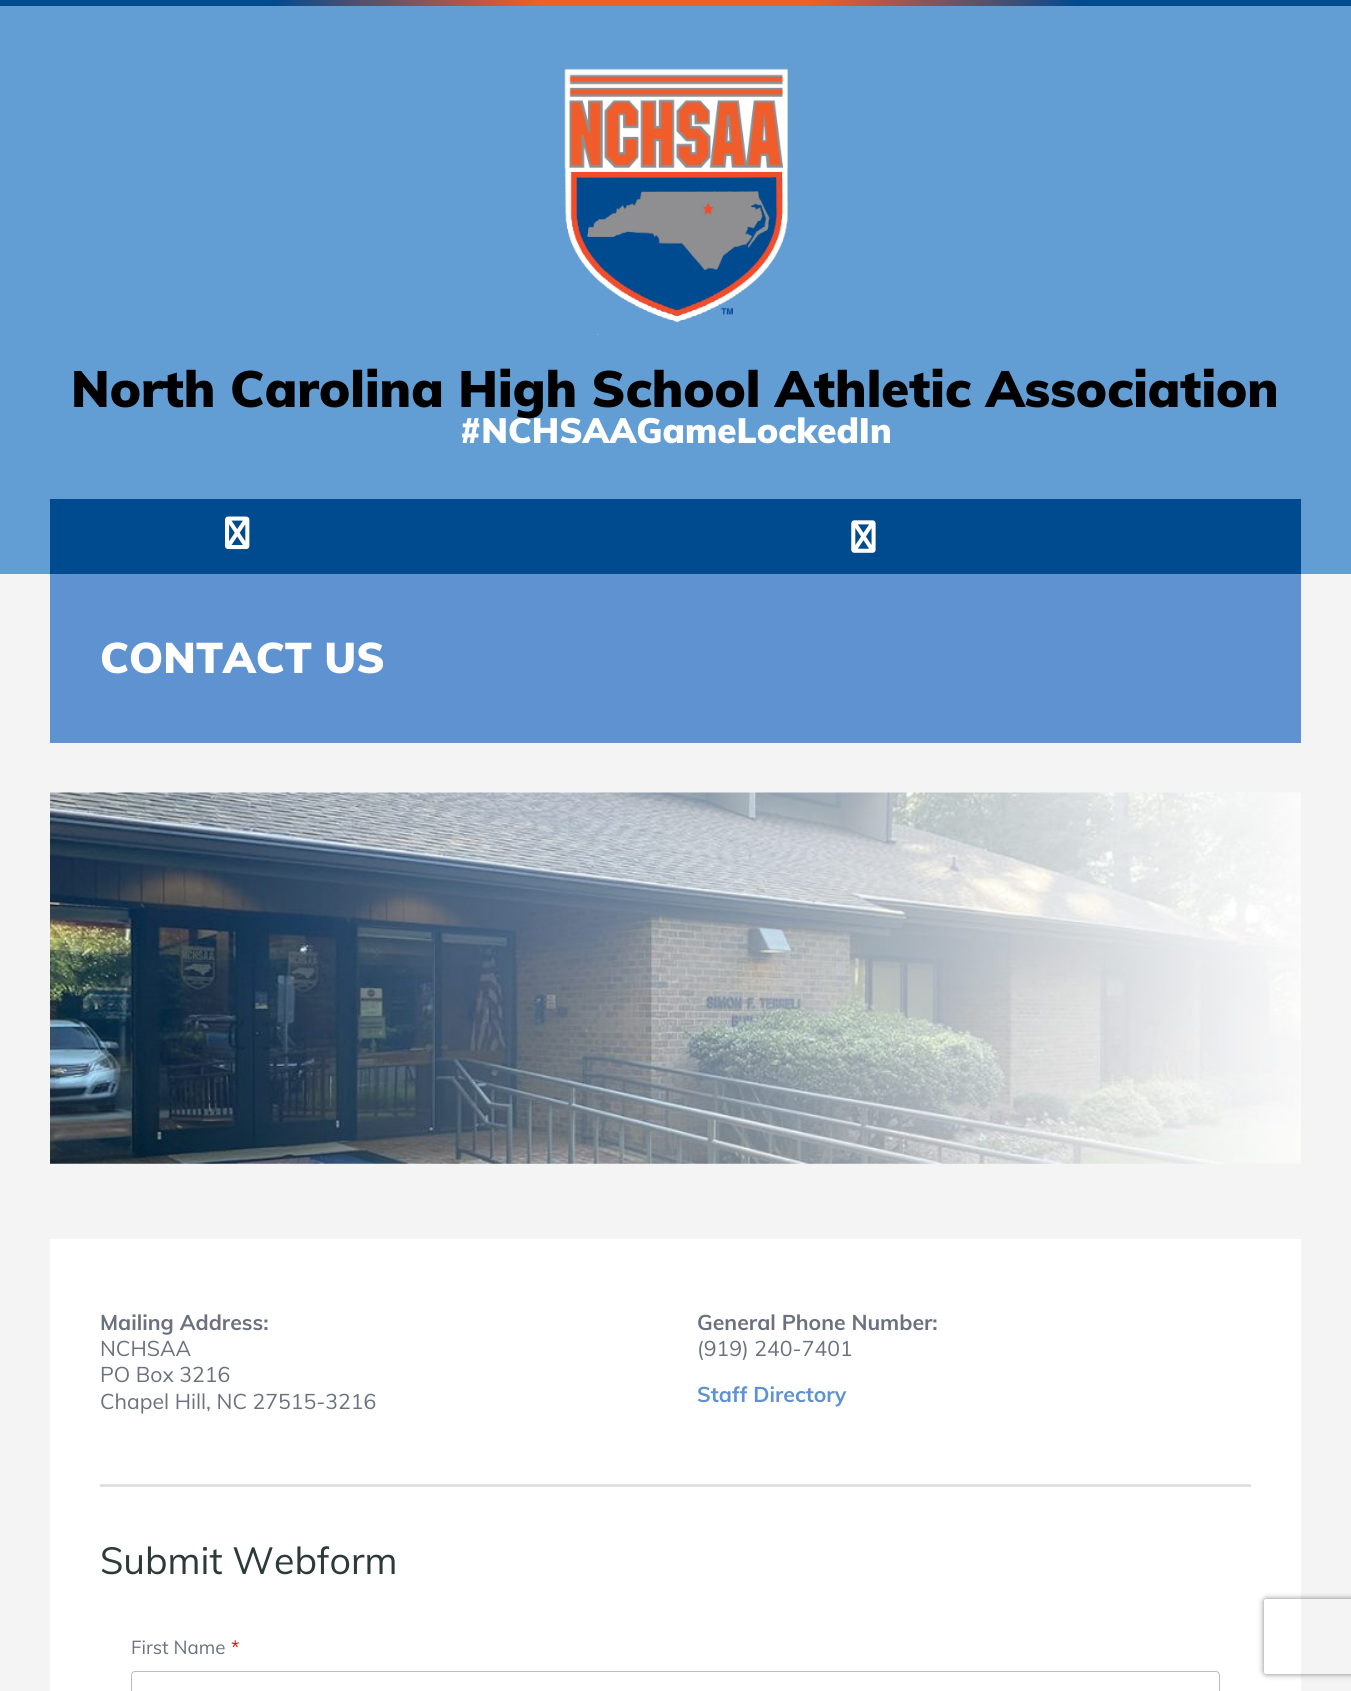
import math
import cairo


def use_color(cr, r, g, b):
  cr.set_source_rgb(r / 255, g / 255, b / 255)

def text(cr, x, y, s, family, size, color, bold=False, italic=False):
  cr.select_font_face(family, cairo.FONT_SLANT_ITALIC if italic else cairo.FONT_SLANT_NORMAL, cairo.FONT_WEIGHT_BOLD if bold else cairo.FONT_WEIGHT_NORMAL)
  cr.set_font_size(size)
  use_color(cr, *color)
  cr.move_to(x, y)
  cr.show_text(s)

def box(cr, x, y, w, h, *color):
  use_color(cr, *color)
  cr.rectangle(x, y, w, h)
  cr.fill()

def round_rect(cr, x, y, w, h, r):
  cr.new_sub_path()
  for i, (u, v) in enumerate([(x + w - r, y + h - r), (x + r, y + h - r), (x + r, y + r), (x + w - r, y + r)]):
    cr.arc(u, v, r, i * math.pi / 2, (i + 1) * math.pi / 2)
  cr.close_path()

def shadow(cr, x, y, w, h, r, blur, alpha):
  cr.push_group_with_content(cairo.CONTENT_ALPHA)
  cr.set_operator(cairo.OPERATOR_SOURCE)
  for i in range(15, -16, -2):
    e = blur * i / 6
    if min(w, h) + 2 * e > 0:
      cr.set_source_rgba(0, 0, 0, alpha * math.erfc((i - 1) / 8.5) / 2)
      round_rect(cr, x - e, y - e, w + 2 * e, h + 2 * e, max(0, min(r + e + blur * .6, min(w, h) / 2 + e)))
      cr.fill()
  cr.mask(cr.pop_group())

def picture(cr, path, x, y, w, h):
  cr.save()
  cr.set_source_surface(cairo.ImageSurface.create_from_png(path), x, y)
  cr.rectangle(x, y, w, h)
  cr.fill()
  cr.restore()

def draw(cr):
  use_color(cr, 244, 244, 244)
  cr.paint()
  box(cr, 0, 6, 1351, 568, 98, 157, 211)
  gradient = cairo.LinearGradient(0, 3.1, 1351, 3.1)
  gradient.add_color_stop_rgba(0, 0, 0.29, 0.565, 1)
  gradient.add_color_stop_rgba(0.2, 0, 0.29, 0.565, 1)
  gradient.add_color_stop_rgba(0.4, 0.945, 0.365, 0.173, 1)
  gradient.add_color_stop_rgba(0.6, 0.945, 0.365, 0.173, 1)
  gradient.add_color_stop_rgba(0.8, 0, 0.29, 0.565, 1)
  gradient.add_color_stop_rgba(1, 0, 0.29, 0.565, 1)
  cr.set_source(gradient)
  cr.rectangle(0, 0, 1351, 6)
  cr.fill()
  picture(cr, "img_01.png", 564, 68, 224, 267)
  box(cr, 50, 499, 1251, 75, 0, 74, 144)
  picture(cr, "img_02.png", 225, 516, 25, 34)
  picture(cr, "img_03.png", 851, 520, 25, 33)
  box(cr, 50, 574, 1251, 169, 94, 146, 209)
  picture(cr, "img_04.png", 50, 792, 1251, 372)
  box(cr, 50, 1239, 1251, 452, 255, 255, 255)
  box(cr, 100, 1484, 1151, 3, 224, 224, 224)
  round_rect(cr, 131.5, 1671.5, 1088, 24, 3.5)
  use_color(cr, 189, 189, 189)
  cr.set_line_width(1)
  cr.stroke()
  cr.save()
  cr.set_fill_rule(cairo.FILL_RULE_EVEN_ODD)
  cr.new_path()
  cr.move_to(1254, 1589)
  cr.line_to(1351, 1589)
  cr.line_to(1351, 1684)
  cr.line_to(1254, 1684)
  cr.close_path()
  cr.move_to(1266.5, 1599)
  cr.line_to(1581.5, 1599)
  cr.curve_to(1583, 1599, 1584, 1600, 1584, 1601.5)
  cr.line_to(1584, 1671.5)
  cr.curve_to(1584, 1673, 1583, 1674, 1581.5, 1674)
  cr.line_to(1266.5, 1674)
  cr.curve_to(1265, 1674, 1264, 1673, 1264, 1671.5)
  cr.line_to(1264, 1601.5)
  cr.curve_to(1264, 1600, 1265, 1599, 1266.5, 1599)
  cr.close_path()
  cr.clip()
  use_color(cr, 128, 128, 128)
  shadow(cr, 1264, 1599, 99, 75, 2.5, 3, 1)
  cr.restore()
  text(cr, 71, 407, "North Carolina High School Athletic Association", "Muli Black", 50.6, (0, 0, 0))
  text(cr, 460, 443, "#NCHSAAGameLockedIn", "Muli Black", 34.9, (255, 255, 255))
  text(cr, 100, 673, "CONTACT US", "Muli Black", 42.5, (255, 255, 255))
  text(cr, 100, 1330, "Mailing Address:", "Muli", 21.25, (107, 113, 126), bold=True)
  text(cr, 100, 1356, "NCHSAA", "Muli", 21.25, (107, 113, 126))
  text(cr, 100, 1382, "PO Box 3216", "Muli", 21.25, (107, 113, 126))
  text(cr, 100, 1409, "Chapel Hill, NC 27515-3216", "Muli", 21.25, (107, 113, 126))
  text(cr, 697, 1330, "General Phone Number:", "Muli", 21.25, (107, 113, 126), bold=True)
  text(cr, 697, 1356, "(919) 240-7401", "Muli", 21.25, (107, 113, 126))
  text(cr, 697, 1402, "Staff Directory", "Muli", 21.25, (94, 146, 209), bold=True)
  text(cr, 100, 1574, "Submit Webform", "Muli", 37.5, (45, 58, 58))
  text(cr, 131, 1654, "First Name", "Muli", 18.75, (107, 113, 126))
  text(cr, 231, 1654, "*", "Muli", 18.75, (255, 0, 0))


surface = cairo.ImageSurface(cairo.FORMAT_RGB24, 1351, 1691)
cr = cairo.Context(surface)
options = cairo.FontOptions()
options.set_hint_metrics(cairo.HINT_METRICS_OFF)
options.set_hint_style(cairo.HINT_STYLE_NONE)
cr.set_font_options(options)
cr.set_miter_limit(4)
draw(cr)
surface.write_to_png("out.png")
